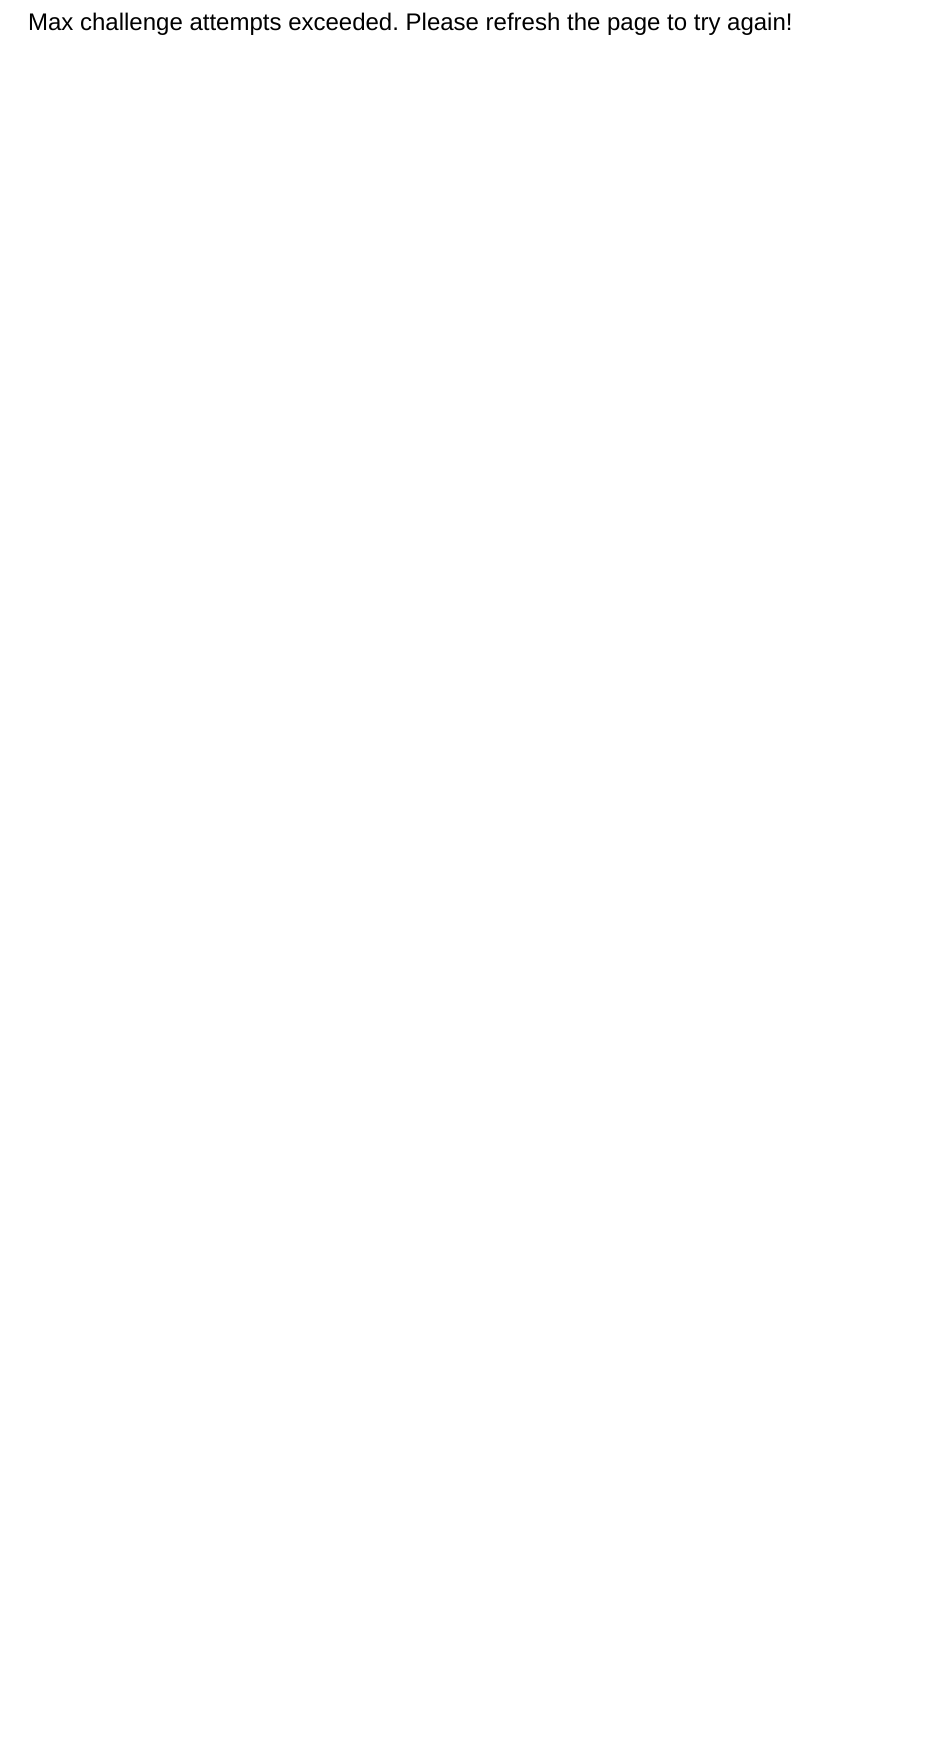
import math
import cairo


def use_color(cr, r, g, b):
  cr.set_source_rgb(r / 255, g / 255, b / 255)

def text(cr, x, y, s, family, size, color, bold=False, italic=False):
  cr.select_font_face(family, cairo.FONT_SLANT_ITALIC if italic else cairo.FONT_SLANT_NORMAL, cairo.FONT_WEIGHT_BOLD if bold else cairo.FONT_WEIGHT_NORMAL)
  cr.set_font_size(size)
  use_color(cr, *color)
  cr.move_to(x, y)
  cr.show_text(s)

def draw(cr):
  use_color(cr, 255, 255, 255)
  cr.paint()
  text(cr, 28, 30, "Max challenge attempts exceeded. Please refresh the page to try again!", "Liberation Sans", 24, (0, 0, 0))


surface = cairo.ImageSurface(cairo.FORMAT_RGB24, 935, 1739)
cr = cairo.Context(surface)
options = cairo.FontOptions()
options.set_hint_metrics(cairo.HINT_METRICS_OFF)
options.set_hint_style(cairo.HINT_STYLE_NONE)
cr.set_font_options(options)
cr.set_miter_limit(4)
draw(cr)
surface.write_to_png("out.png")
